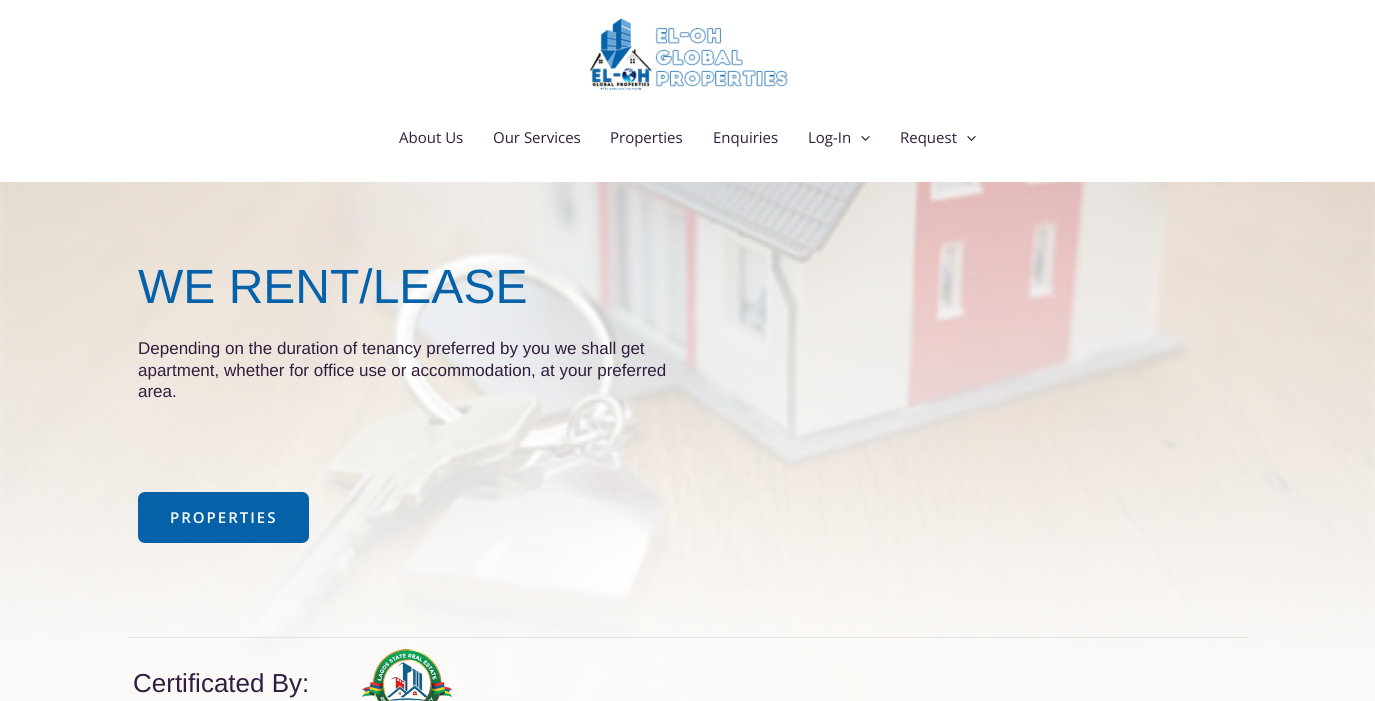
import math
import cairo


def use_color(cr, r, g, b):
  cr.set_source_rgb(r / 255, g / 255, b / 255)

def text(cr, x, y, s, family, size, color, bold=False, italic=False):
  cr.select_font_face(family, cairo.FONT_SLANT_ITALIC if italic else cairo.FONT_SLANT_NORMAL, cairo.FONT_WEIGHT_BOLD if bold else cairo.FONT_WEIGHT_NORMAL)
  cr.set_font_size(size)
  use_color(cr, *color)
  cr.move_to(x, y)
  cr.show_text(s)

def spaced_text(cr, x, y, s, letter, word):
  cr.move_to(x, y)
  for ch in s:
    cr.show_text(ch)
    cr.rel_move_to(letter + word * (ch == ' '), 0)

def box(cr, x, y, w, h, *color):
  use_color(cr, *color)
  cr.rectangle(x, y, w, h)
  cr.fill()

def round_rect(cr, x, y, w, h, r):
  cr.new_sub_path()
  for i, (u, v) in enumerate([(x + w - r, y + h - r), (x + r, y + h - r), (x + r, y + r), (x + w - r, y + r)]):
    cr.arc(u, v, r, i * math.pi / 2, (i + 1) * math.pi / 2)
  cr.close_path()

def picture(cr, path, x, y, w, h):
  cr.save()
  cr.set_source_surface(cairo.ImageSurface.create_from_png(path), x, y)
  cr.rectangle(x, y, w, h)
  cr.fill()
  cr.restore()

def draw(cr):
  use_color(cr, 255, 255, 255)
  cr.paint()
  picture(cr, "img_01.png", 590, 18, 198, 73)
  picture(cr, "img_02.png", 861, 136, 9, 5)
  picture(cr, "img_02.png", 967, 136, 9, 5)
  picture(cr, "img_03.png", 0, 182, 1375, 519)
  use_color(cr, 5, 98, 169)
  round_rect(cr, 138, 492, 171, 51, 7)
  cr.fill()
  box(cr, 128, 637, 1120, 1, 230, 227, 227)
  picture(cr, "img_04.png", 362, 648, 91, 53)
  text(cr, 399, 143, "About Us", "Open Sans", 15, (49, 29, 61))
  text(cr, 493, 143, "Our Services", "Open Sans", 15, (49, 29, 61))
  text(cr, 610, 143, "Properties", "Open Sans", 15, (49, 29, 61))
  text(cr, 713, 143, "Enquiries", "Open Sans", 15, (49, 29, 61))
  text(cr, 808, 143, "Log-In", "Open Sans", 15, (49, 29, 61))
  text(cr, 900, 143, "Request", "Open Sans", 15, (49, 29, 61))
  text(cr, 138, 303, "WE RENT/LEASE", "Liberation Sans", 48, (5, 98, 169))
  text(cr, 138, 354, "Depending on the duration of tenancy preferred by you we shall get", "Liberation Sans", 17, (49, 29, 61))
  text(cr, 138, 376, "apartment, whether for office use or accommodation, at your preferred", "Liberation Sans", 17, (49, 29, 61))
  text(cr, 138, 397, "area.", "Liberation Sans", 17, (49, 29, 61))
  cr.select_font_face("Open Sans SemiBold")
  cr.set_font_size(15)
  use_color(cr, 255, 255, 255)
  spaced_text(cr, 170, 523, "PROPERTIES", 2, 0)
  text(cr, 133, 692, "Certificated By:", "Liberation Sans", 26, (49, 29, 61))


surface = cairo.ImageSurface(cairo.FORMAT_RGB24, 1375, 701)
cr = cairo.Context(surface)
options = cairo.FontOptions()
options.set_hint_metrics(cairo.HINT_METRICS_OFF)
options.set_hint_style(cairo.HINT_STYLE_NONE)
cr.set_font_options(options)
cr.set_miter_limit(4)
draw(cr)
surface.write_to_png("out.png")
